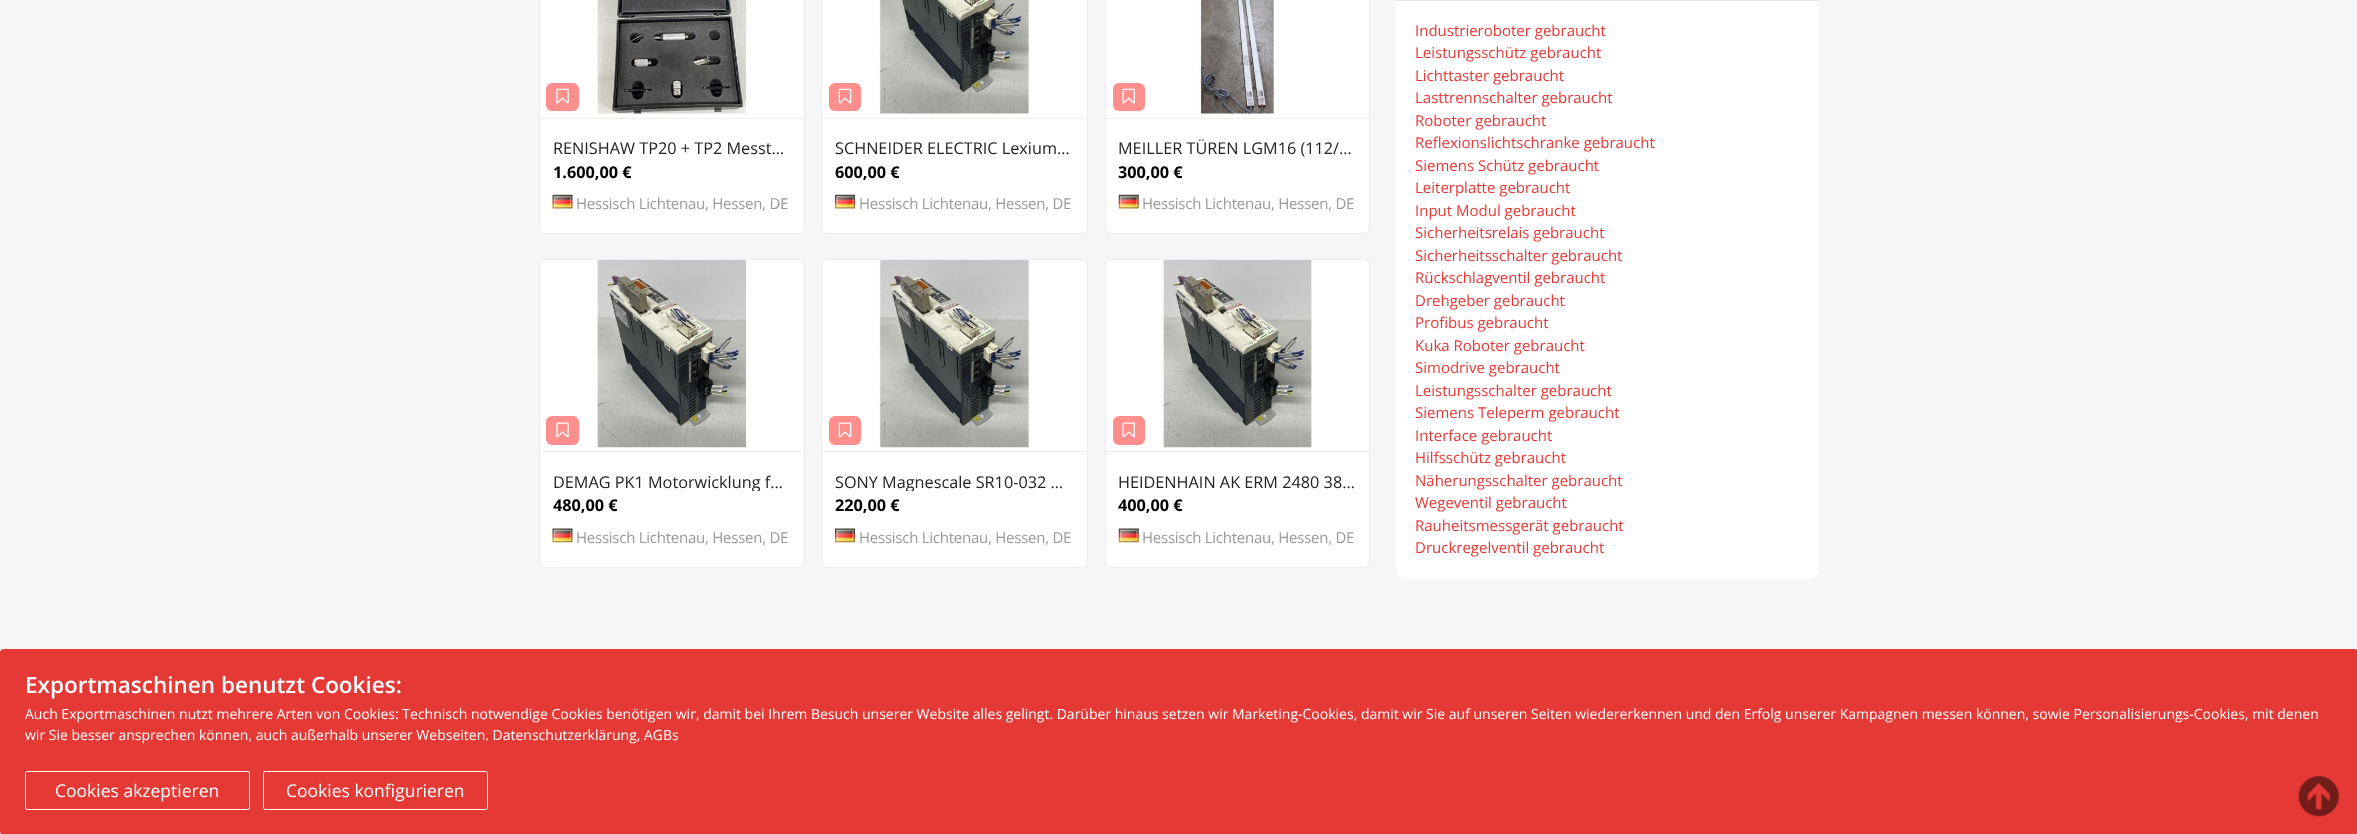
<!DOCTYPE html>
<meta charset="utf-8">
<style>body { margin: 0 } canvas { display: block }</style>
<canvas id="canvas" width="2357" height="834"></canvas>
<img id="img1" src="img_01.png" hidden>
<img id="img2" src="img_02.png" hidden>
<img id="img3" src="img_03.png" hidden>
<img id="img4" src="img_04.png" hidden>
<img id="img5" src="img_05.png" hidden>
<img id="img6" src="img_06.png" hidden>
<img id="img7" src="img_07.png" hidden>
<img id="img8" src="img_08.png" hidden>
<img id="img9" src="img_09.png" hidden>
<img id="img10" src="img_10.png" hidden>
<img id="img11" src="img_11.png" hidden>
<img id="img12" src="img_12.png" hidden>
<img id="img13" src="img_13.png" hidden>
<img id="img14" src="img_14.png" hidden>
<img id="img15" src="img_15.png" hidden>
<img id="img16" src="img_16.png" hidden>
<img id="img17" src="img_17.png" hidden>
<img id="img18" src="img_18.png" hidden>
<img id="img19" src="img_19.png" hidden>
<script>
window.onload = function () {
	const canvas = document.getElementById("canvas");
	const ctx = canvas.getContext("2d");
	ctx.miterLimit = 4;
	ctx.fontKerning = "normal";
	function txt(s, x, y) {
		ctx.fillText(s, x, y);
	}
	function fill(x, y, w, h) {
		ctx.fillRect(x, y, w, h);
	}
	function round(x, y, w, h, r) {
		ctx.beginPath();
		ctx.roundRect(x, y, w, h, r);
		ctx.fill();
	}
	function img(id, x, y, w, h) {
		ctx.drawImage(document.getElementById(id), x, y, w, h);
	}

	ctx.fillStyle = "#F6F5F7";
	fill(0, 0, 2357, 834);
	ctx.fillStyle = "#FFFFFF";
	ctx.beginPath();
	ctx.roundRect(539.5, -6.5, 265, 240, 5.5);
	ctx.fill();
	ctx.strokeStyle = "#E7EDF2";
	ctx.stroke();
	ctx.fillStyle = "#EEEEEE";
	fill(540, 118, 264, 1);
	ctx.fillStyle = "#FF8F8C";
	round(546, 83, 33, 28, 6);
	img("img1", 556, 88, 13, 16);
	img("img2", 591, 0, 157, 114);
	img("img3", 552, 194, 21, 15);
	ctx.fillStyle = "#FFFFFF";
	ctx.beginPath();
	ctx.roundRect(821.5, -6.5, 266, 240, 5.5);
	ctx.fill();
	ctx.stroke();
	ctx.fillStyle = "#EEEEEE";
	fill(823, 118, 263, 1);
	ctx.fillStyle = "#FF8F8C";
	round(829, 83, 32, 28, 6);
	img("img4", 838, 88, 14, 16);
	img("img5", 877, 0, 153, 114);
	img("img6", 835, 194, 20, 15);
	ctx.fillStyle = "#FFFFFF";
	ctx.beginPath();
	ctx.roundRect(1105.5, -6.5, 264, 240, 5.5);
	ctx.fill();
	ctx.stroke();
	ctx.fillStyle = "#EEEEEE";
	fill(1106, 118, 263, 1);
	ctx.fillStyle = "#FF8F8C";
	round(1113, 83, 32, 28, 6);
	img("img7", 1122, 88, 13, 16);
	img("img8", 1198, 0, 76, 114);
	img("img9", 1118, 194, 21, 15);
	ctx.fillStyle = "#FFFFFF";
	ctx.beginPath();
	ctx.roundRect(539.5, 259.5, 265, 308, 5.5);
	ctx.fill();
	ctx.stroke();
	ctx.fillStyle = "#EEEEEE";
	fill(540, 451, 264, 1);
	ctx.fillStyle = "#FF8F8C";
	round(546, 416, 33, 29, 6);
	img("img10", 556, 422, 13, 16);
	img("img11", 595, 260, 153, 188);
	img("img12", 552, 528, 21, 15);
	ctx.fillStyle = "#FFFFFF";
	ctx.beginPath();
	ctx.roundRect(821.5, 259.5, 266, 308, 5.5);
	ctx.fill();
	ctx.stroke();
	ctx.fillStyle = "#EEEEEE";
	fill(823, 451, 263, 1);
	ctx.fillStyle = "#FF8F8C";
	round(829, 416, 32, 29, 6);
	img("img13", 838, 422, 14, 16);
	img("img14", 877, 260, 153, 188);
	img("img15", 835, 528, 20, 15);
	ctx.fillStyle = "#FFFFFF";
	ctx.beginPath();
	ctx.roundRect(1105.5, 259.5, 264, 308, 5.5);
	ctx.fill();
	ctx.stroke();
	ctx.fillStyle = "#EEEEEE";
	fill(1106, 451, 263, 1);
	ctx.fillStyle = "#FF8F8C";
	round(1113, 416, 32, 29, 6);
	img("img16", 1122, 422, 13, 16);
	img("img17", 1161, 260, 152, 188);
	img("img18", 1118, 528, 21, 15);
	ctx.fillStyle = "#FFFFFF";
	round(1396, -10, 423, 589, 10);
	ctx.fillStyle = "#E6E6E6";
	fill(1396, 0, 423, 1);
	ctx.fillStyle = "#E53935";
	round(0, 649, 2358, 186, 4);
	ctx.beginPath();
	ctx.roundRect(25.5, 771.5, 224, 38, 2);
	ctx.strokeStyle = "#FFFFFF";
	ctx.stroke();
	ctx.beginPath();
	ctx.roundRect(263.5, 771.5, 224, 38, 2);
	ctx.stroke();
	img("img19", 2298, 776, 41, 41);
	ctx.font = "16.25px Open Sans";
	ctx.fillStyle = "#222222";
	txt("RENISHAW TP20 + TP2 Messt…", 553, 154);
	ctx.font = "bold 16.25px Open Sans";
	ctx.fillStyle = "#000000";
	txt("1.600,00 €", 553, 178);
	ctx.letterSpacing = "-0.25px";
	ctx.font = "15px Open Sans";
	ctx.fillStyle = "#999999";
	txt("Hessisch Lichtenau, Hessen, DE", 576, 209);
	ctx.letterSpacing = "0px";
	ctx.font = "16.25px Open Sans";
	ctx.fillStyle = "#222222";
	txt("SCHNEIDER ELECTRIC Lexium…", 835, 154);
	ctx.font = "bold 16.25px Open Sans";
	ctx.fillStyle = "#000000";
	txt("600,00 €", 835, 178);
	ctx.letterSpacing = "-0.25px";
	ctx.font = "15px Open Sans";
	ctx.fillStyle = "#999999";
	txt("Hessisch Lichtenau, Hessen, DE", 859, 209);
	ctx.letterSpacing = "0px";
	ctx.font = "16.25px Open Sans";
	ctx.fillStyle = "#222222";
	txt("MEILLER TÜREN LGM16 (112/…", 1118, 154);
	ctx.font = "bold 16.25px Open Sans";
	ctx.fillStyle = "#000000";
	txt("300,00 €", 1118, 178);
	ctx.letterSpacing = "-0.25px";
	ctx.font = "15px Open Sans";
	ctx.fillStyle = "#999999";
	txt("Hessisch Lichtenau, Hessen, DE", 1142, 209);
	ctx.save();
	ctx.beginPath();
	ctx.rect(540, 471, 264, 20);
	ctx.clip();
	ctx.letterSpacing = "0px";
	ctx.font = "16.25px Open Sans";
	ctx.fillStyle = "#222222";
	txt("DEMAG PK1 Motorwicklung f…", 553, 488);
	ctx.restore();
	ctx.letterSpacing = "0px";
	ctx.font = "bold 16.25px Open Sans";
	ctx.fillStyle = "#000000";
	txt("480,00 €", 553, 511);
	ctx.letterSpacing = "-0.25px";
	ctx.font = "15px Open Sans";
	ctx.fillStyle = "#999999";
	txt("Hessisch Lichtenau, Hessen, DE", 576, 543);
	ctx.save();
	ctx.beginPath();
	ctx.rect(823, 471, 263, 20);
	ctx.clip();
	ctx.letterSpacing = "0px";
	ctx.font = "16.25px Open Sans";
	ctx.fillStyle = "#222222";
	txt("SONY Magnescale SR10-032 …", 835, 488);
	ctx.restore();
	ctx.letterSpacing = "0px";
	ctx.font = "bold 16.25px Open Sans";
	ctx.fillStyle = "#000000";
	txt("220,00 €", 835, 511);
	ctx.letterSpacing = "-0.25px";
	ctx.font = "15px Open Sans";
	ctx.fillStyle = "#999999";
	txt("Hessisch Lichtenau, Hessen, DE", 859, 543);
	ctx.letterSpacing = "0px";
	ctx.font = "16.25px Open Sans";
	ctx.fillStyle = "#222222";
	txt("HEIDENHAIN AK ERM 2480 38…", 1118, 488);
	ctx.font = "bold 16.25px Open Sans";
	ctx.fillStyle = "#000000";
	txt("400,00 €", 1118, 511);
	ctx.letterSpacing = "-0.25px";
	ctx.font = "15px Open Sans";
	ctx.fillStyle = "#999999";
	txt("Hessisch Lichtenau, Hessen, DE", 1142, 543);
	ctx.letterSpacing = "0px";
	ctx.fillStyle = "#E53935";
	txt("Industrieroboter gebraucht", 1415, 36);
	txt("Leistungsschütz gebraucht", 1415, 58);
	txt("Lichttaster gebraucht", 1415, 81);
	txt("Lasttrennschalter gebraucht", 1415, 103);
	txt("Roboter gebraucht", 1415, 126);
	txt("Reflexionslichtschranke gebraucht", 1415, 148);
	txt("Siemens Schütz gebraucht", 1415, 171);
	txt("Leiterplatte gebraucht", 1415, 193);
	txt("Input Modul gebraucht", 1415, 216);
	txt("Sicherheitsrelais gebraucht", 1415, 238);
	txt("Sicherheitsschalter gebraucht", 1415, 261);
	txt("Rückschlagventil gebraucht", 1415, 283);
	txt("Drehgeber gebraucht", 1415, 306);
	txt("Profibus gebraucht", 1415, 328);
	txt("Kuka Roboter gebraucht", 1415, 351);
	txt("Simodrive gebraucht", 1415, 373);
	txt("Leistungsschalter gebraucht", 1415, 396);
	txt("Siemens Teleperm gebraucht", 1415, 418);
	txt("Interface gebraucht", 1415, 441);
	txt("Hilfsschütz gebraucht", 1415, 463);
	txt("Näherungsschalter gebraucht", 1415, 486);
	txt("Wegeventil gebraucht", 1415, 508);
	txt("Rauheitsmessgerät gebraucht", 1415, 531);
	txt("Druckregelventil gebraucht", 1415, 553);
	ctx.font = "600 22.5px Open Sans";
	ctx.fillStyle = "#FFFFFF";
	txt("Exportmaschinen benutzt Cookies:", 25, 693);
	ctx.font = "14px Open Sans";
	txt("Auch Exportmaschinen nutzt mehrere Arten von Cookies: Technisch notwendige Cookies benötigen wir, damit bei Ihrem Besuch unserer Website alles gelingt. Darüber hinaus setzen wir Marketing-Cookies, damit wir Sie auf unseren Seiten wiedererkennen und den Erfolg unserer Kampagnen messen können, sowie Personalisierungs-Cookies, mit denen", 25, 719);
	txt("wir Sie besser ansprechen können, auch außerhalb unserer Webseiten. Datenschutzerklärung, AGBs", 25, 740);
	ctx.font = "17.5px Open Sans";
	txt("Cookies akzeptieren", 55, 797);
	txt("Cookies konfigurieren", 286, 797);
};
</script>
